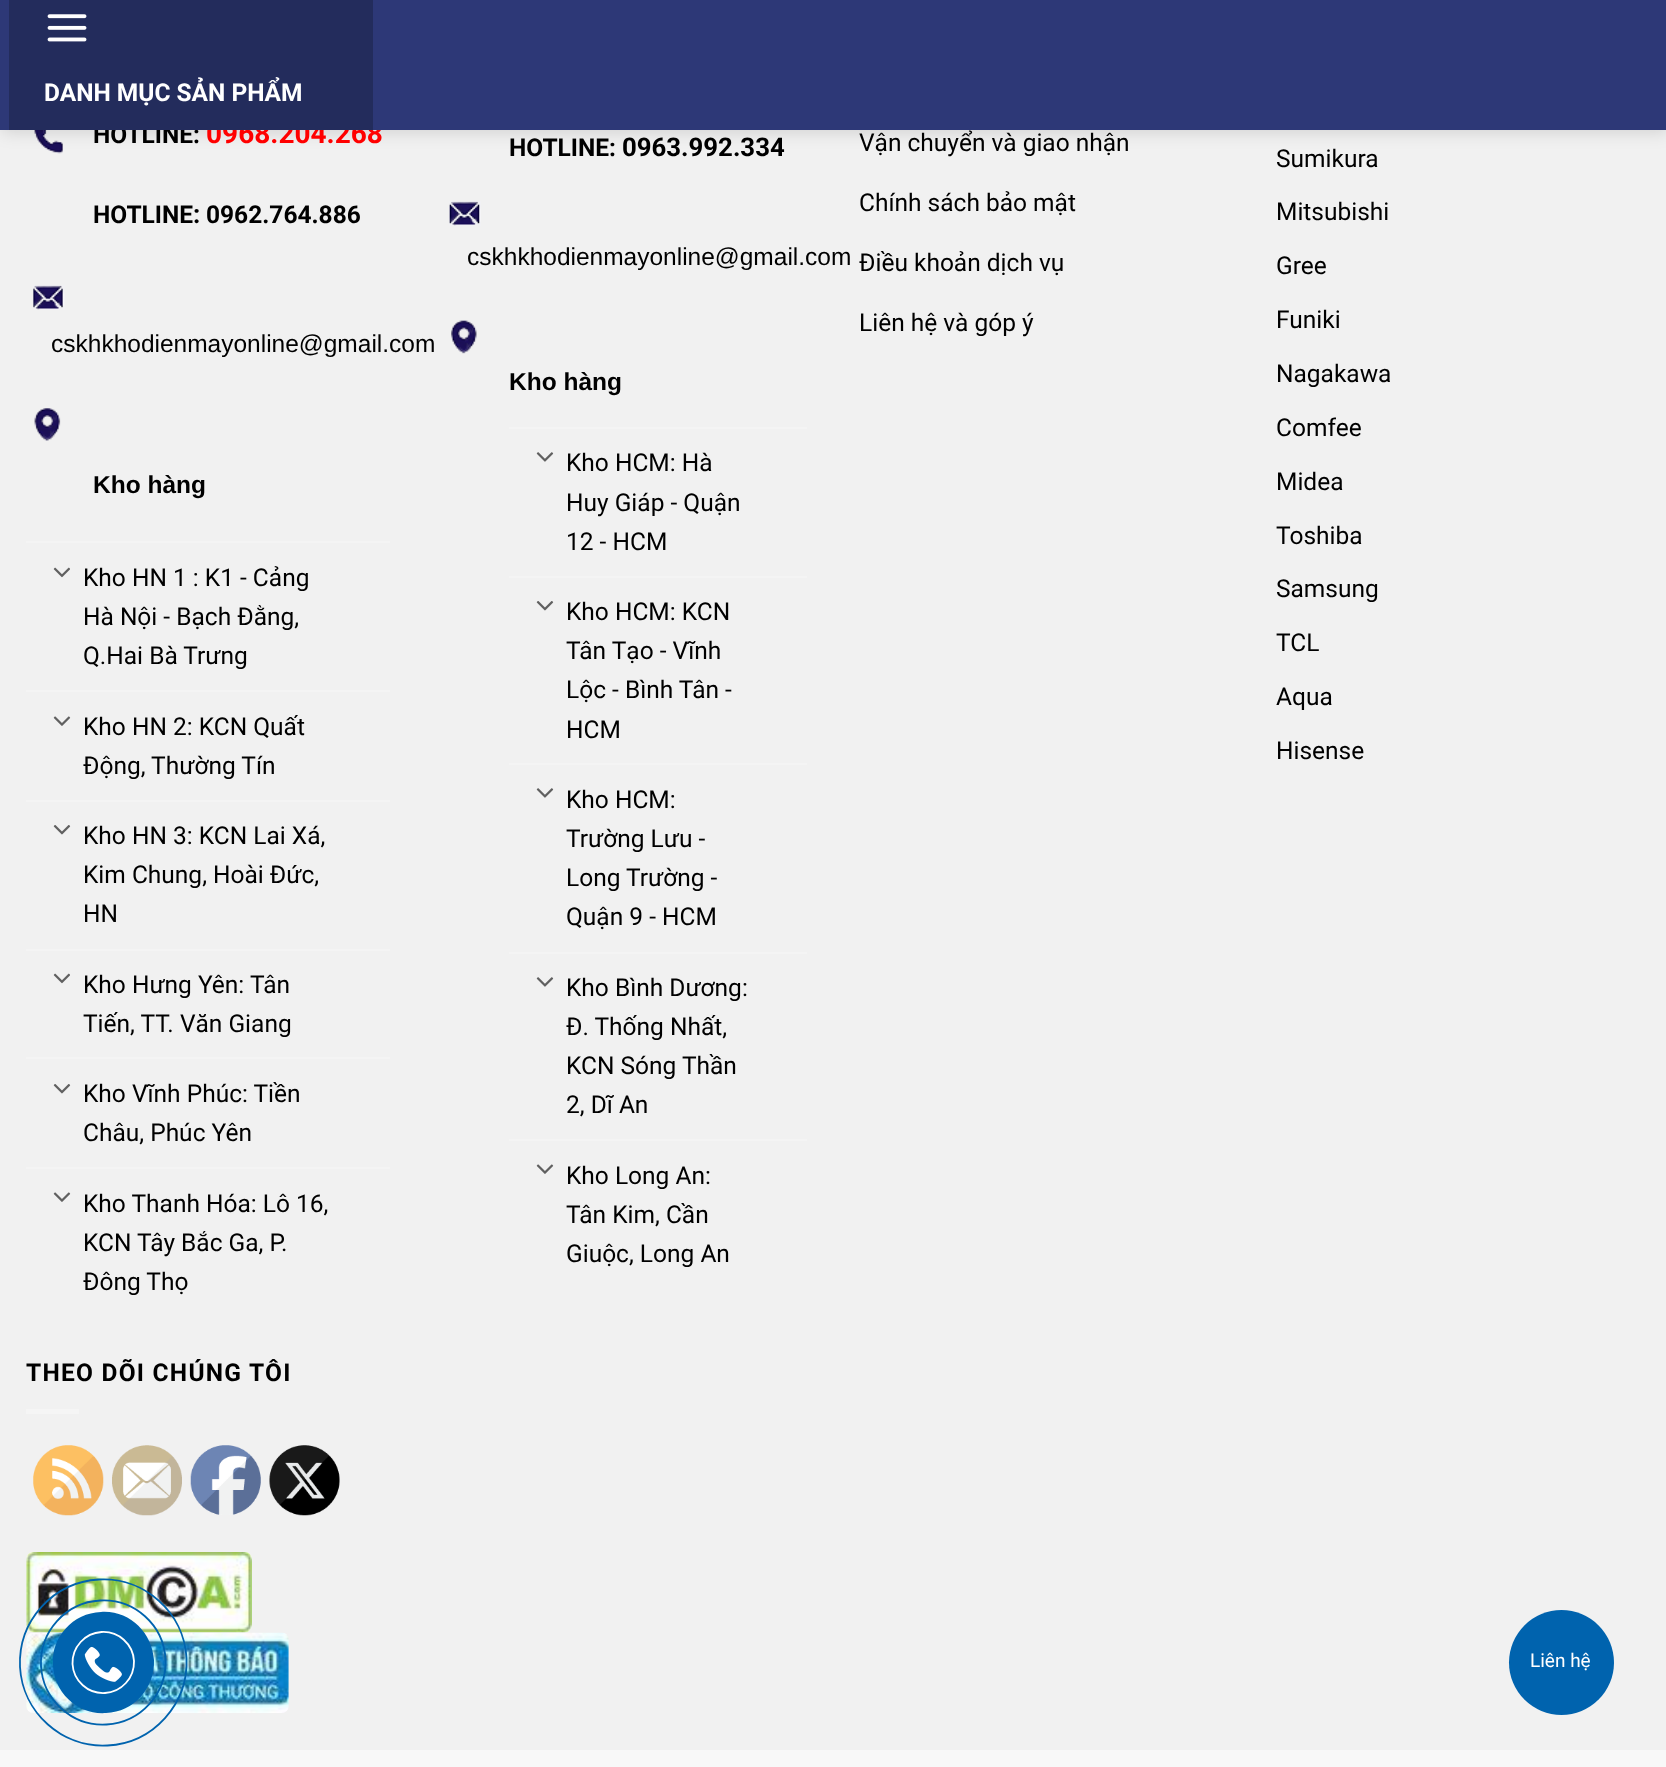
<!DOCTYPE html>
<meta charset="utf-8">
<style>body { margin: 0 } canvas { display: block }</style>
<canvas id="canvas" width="1666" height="1767"></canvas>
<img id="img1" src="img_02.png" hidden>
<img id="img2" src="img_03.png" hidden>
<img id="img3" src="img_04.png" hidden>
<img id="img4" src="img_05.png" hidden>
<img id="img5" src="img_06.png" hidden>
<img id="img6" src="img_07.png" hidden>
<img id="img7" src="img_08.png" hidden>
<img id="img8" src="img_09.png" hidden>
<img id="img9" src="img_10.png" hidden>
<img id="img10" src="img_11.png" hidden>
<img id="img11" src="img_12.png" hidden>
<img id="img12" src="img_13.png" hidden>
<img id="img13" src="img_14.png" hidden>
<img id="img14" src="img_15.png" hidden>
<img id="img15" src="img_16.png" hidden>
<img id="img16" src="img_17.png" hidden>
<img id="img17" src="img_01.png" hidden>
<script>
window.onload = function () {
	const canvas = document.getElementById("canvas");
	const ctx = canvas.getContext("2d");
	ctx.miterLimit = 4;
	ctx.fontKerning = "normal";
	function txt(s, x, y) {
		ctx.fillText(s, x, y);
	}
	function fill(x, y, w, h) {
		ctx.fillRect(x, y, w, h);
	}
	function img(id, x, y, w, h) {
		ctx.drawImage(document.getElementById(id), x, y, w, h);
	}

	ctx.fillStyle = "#F1F1F1";
	fill(0, 0, 1666, 1767);
	img("img1", 34, 130, 29, 24);
	ctx.fillStyle = "rgba(0, 0, 0, 0.15)";
	ctx.filter = "blur(9px)";
	ctx.beginPath();
	ctx.rect(2, 2, 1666, 129);
	ctx.fill();
	ctx.filter = "none";
	img("img2", 33, 285, 32, 25);
	img("img3", 34, 408, 27, 33);
	ctx.fillStyle = "#F4F4F4";
	fill(26, 541, 364, 2);
	img("img4", 53, 567, 17, 11);
	fill(26, 690, 364, 2);
	img("img5", 53, 716, 18, 10);
	fill(26, 800, 364, 2);
	img("img6", 53, 825, 18, 10);
	fill(26, 949, 364, 2);
	img("img4", 53, 973, 17, 11);
	fill(26, 1057, 364, 2);
	img("img6", 53, 1084, 18, 10);
	fill(26, 1167, 364, 2);
	img("img5", 53, 1192, 18, 10);
	img("img7", 449, 201, 32, 25);
	img("img8", 451, 320, 26, 34);
	fill(509, 427, 298, 2);
	img("img9", 536, 452, 18, 10);
	fill(509, 576, 298, 2);
	img("img6", 536, 601, 18, 10);
	fill(509, 763, 298, 2);
	img("img9", 536, 788, 18, 10);
	fill(509, 952, 298, 2);
	img("img9", 536, 977, 18, 10);
	fill(509, 1139, 298, 2);
	img("img5", 536, 1164, 18, 10);
	ctx.fillStyle = "#F5F5F5";
	fill(26, 1409, 53, 5);
	img("img10", 33, 1445, 71, 71);
	img("img11", 112, 1445, 70, 71);
	img("img12", 190, 1445, 71, 70);
	img("img13", 269, 1445, 71, 71);
	img("img14", 26, 1552, 226, 81);
	img("img15", 26, 1632, 263, 81);
	ctx.fillStyle = "#F8F8F8";
	fill(0, 1750, 1666, 17);
	ctx.fillStyle = "#0063AE";
	ctx.beginPath();
	ctx.moveTo(101, 1612);
	ctx.bezierCurveTo(129, 1610, 152, 1632, 154, 1660);
	ctx.bezierCurveTo(155, 1688, 134, 1712, 106, 1713);
	ctx.bezierCurveTo(78, 1715, 54, 1693, 53, 1665);
	ctx.bezierCurveTo(51, 1637, 73, 1613, 101, 1612);
	ctx.closePath();
	ctx.fill();
	ctx.beginPath();
	ctx.moveTo(100, 1600.5);
	ctx.bezierCurveTo(134.5, 1598.5, 163.5, 1625, 165.5, 1659);
	ctx.bezierCurveTo(167, 1693.5, 141, 1722.5, 106.5, 1724.5);
	ctx.bezierCurveTo(72, 1726.5, 43, 1700, 41, 1666);
	ctx.bezierCurveTo(39.5, 1631.5, 65.5, 1602.5, 100, 1600.5);
	ctx.closePath();
	ctx.strokeStyle = "#0063AE";
	ctx.lineWidth = 1.8;
	ctx.stroke();
	img("img16", 84, 1646, 38, 36);
	ctx.beginPath();
	ctx.moveTo(99, 1579.5);
	ctx.bezierCurveTo(144.5, 1577, 184, 1612.5, 186.5, 1658);
	ctx.bezierCurveTo(188.5, 1704, 153.5, 1743, 107.5, 1745.5);
	ctx.bezierCurveTo(62, 1748, 22.5, 1712.5, 20, 1667);
	ctx.bezierCurveTo(18, 1621, 53, 1582, 99, 1579.5);
	ctx.closePath();
	ctx.stroke();
	ctx.beginPath();
	ctx.moveTo(101.5, 1632);
	ctx.bezierCurveTo(118.5, 1631, 133, 1644, 134, 1661);
	ctx.bezierCurveTo(134.5, 1678, 121.5, 1692, 105, 1693);
	ctx.bezierCurveTo(88, 1694, 73.5, 1681, 72.5, 1664);
	ctx.bezierCurveTo(72, 1647, 85, 1633, 101.5, 1632);
	ctx.closePath();
	ctx.strokeStyle = "#FFFFFF";
	ctx.stroke();
	ctx.beginPath();
	ctx.arc(1561.5, 1662.5, 52.5, 0, Math.PI * 2);
	ctx.fill();
	ctx.font = "bold 24.5px Roboto";
	ctx.fillStyle = "#000000";
	txt("HOTLINE:", 93, 143);
	ctx.font = "bold 28px Roboto";
	ctx.fillStyle = "#FF0000";
	txt("0968.204.268", 206, 143);
	ctx.fillStyle = "#2D3877";
	fill(0, 0, 1666, 130);
	ctx.fillStyle = "#232C5C";
	fill(9, 0, 364, 130);
	img("img17", 47, 14, 40, 28);
	ctx.font = "bold 24.5px Roboto";
	ctx.fillStyle = "#FFFFFF";
	txt("DANH MỤC SẢN PHẨM", 44, 101);
	ctx.fillStyle = "#000000";
	txt("HOTLINE", 93, 223);
	ctx.font = "bold 25.75px Roboto";
	txt(":", 193, 223);
	ctx.font = "bold 24.5px Roboto";
	txt("0962.764.886", 206, 223);
	ctx.font = "24.5px Liberation Sans";
	txt("cskhkhodienmayonline@gmail.com", 51, 352);
	ctx.font = "bold 24.5px Liberation Sans";
	txt("Kho hàng", 93, 493);
	ctx.font = "24.5px Roboto";
	txt("Kho HN 1 : K1 - Cảng", 83, 586);
	txt("Hà Nội - Bạch Đằng,", 83, 625);
	txt("Q.Hai Bà Trưng", 83, 664);
	txt("Kho HN 2: KCN Quất", 83, 735);
	txt("Động, Thường Tín", 83, 774);
	txt("Kho HN 3: KCN Lai Xá,", 83, 844);
	txt("Kim Chung, Hoài Đức,", 83, 883);
	txt("HN", 83, 922);
	txt("Kho Hưng Yên: Tân", 83, 993);
	txt("Tiến, TT. Văn Giang", 83, 1032);
	txt("Kho Vĩnh Phúc: Tiền", 83, 1102);
	txt("Châu, Phúc Yên", 83, 1141);
	txt("Kho Thanh Hóa: Lô 16,", 83, 1212);
	txt("KCN Tây Bắc Ga, P.", 83, 1251);
	txt("Đông Thọ", 83, 1290);
	ctx.font = "bold 24.5px Roboto";
	txt("HOTLINE:", 509, 156);
	ctx.font = "bold 25.75px Roboto";
	txt("0963.992.334", 622, 156);
	ctx.font = "24.5px Liberation Sans";
	txt("cskhkhodienmayonline@gmail.com", 467, 265);
	ctx.font = "bold 24.5px Liberation Sans";
	txt("Kho hàng", 509, 390);
	ctx.font = "24.5px Roboto";
	txt("Kho HCM: Hà", 566, 471);
	txt("Huy Giáp - Quận", 566, 511);
	txt("12 - HCM", 566, 550);
	txt("Kho HCM: KCN", 566, 620);
	txt("Tân Tạo - Vĩnh", 566, 659);
	txt("Lộc - Bình Tân -", 566, 698);
	txt("HCM", 566, 738);
	txt("Kho HCM:", 566, 808);
	txt("Trường Lưu -", 566, 847);
	txt("Long Trường -", 566, 886);
	txt("Quận 9 - HCM", 566, 925);
	txt("Kho Bình Dương:", 566, 996);
	txt("Đ. Thống Nhất,", 566, 1035);
	txt("KCN Sóng Thần", 566, 1074);
	txt("2, Dĩ An", 566, 1113);
	txt("Kho Long An:", 566, 1184);
	txt("Tân Kim, Cần", 566, 1223);
	txt("Giuộc, Long An", 566, 1262);
	txt("Vận chuyển và giao nhận", 859, 151);
	txt("Chính sách bảo mật", 859, 211);
	txt("Điều khoản dịch vụ", 859, 271);
	txt("Liên hệ và góp ý", 859, 331);
	txt("Sumikura", 1276, 167);
	txt("Mitsubishi", 1276, 220);
	txt("Gree", 1276, 274);
	txt("Funiki", 1276, 328);
	txt("Nagakawa", 1276, 382);
	txt("Comfee", 1276, 436);
	txt("Midea", 1276, 490);
	txt("Toshiba", 1276, 544);
	txt("Samsung", 1276, 597);
	txt("TCL", 1276, 651);
	txt("Aqua", 1276, 705);
	txt("Hisense", 1276, 759);
	ctx.letterSpacing = "1.25px";
	ctx.font = "bold 24.5px Roboto";
	txt("THEO DÕI CHÚNG TÔI", 26, 1381);
	ctx.letterSpacing = "0px";
	ctx.font = "19px Roboto";
	ctx.fillStyle = "#FFFFFF";
	txt("Liên hệ", 1530, 1667);
};
</script>
